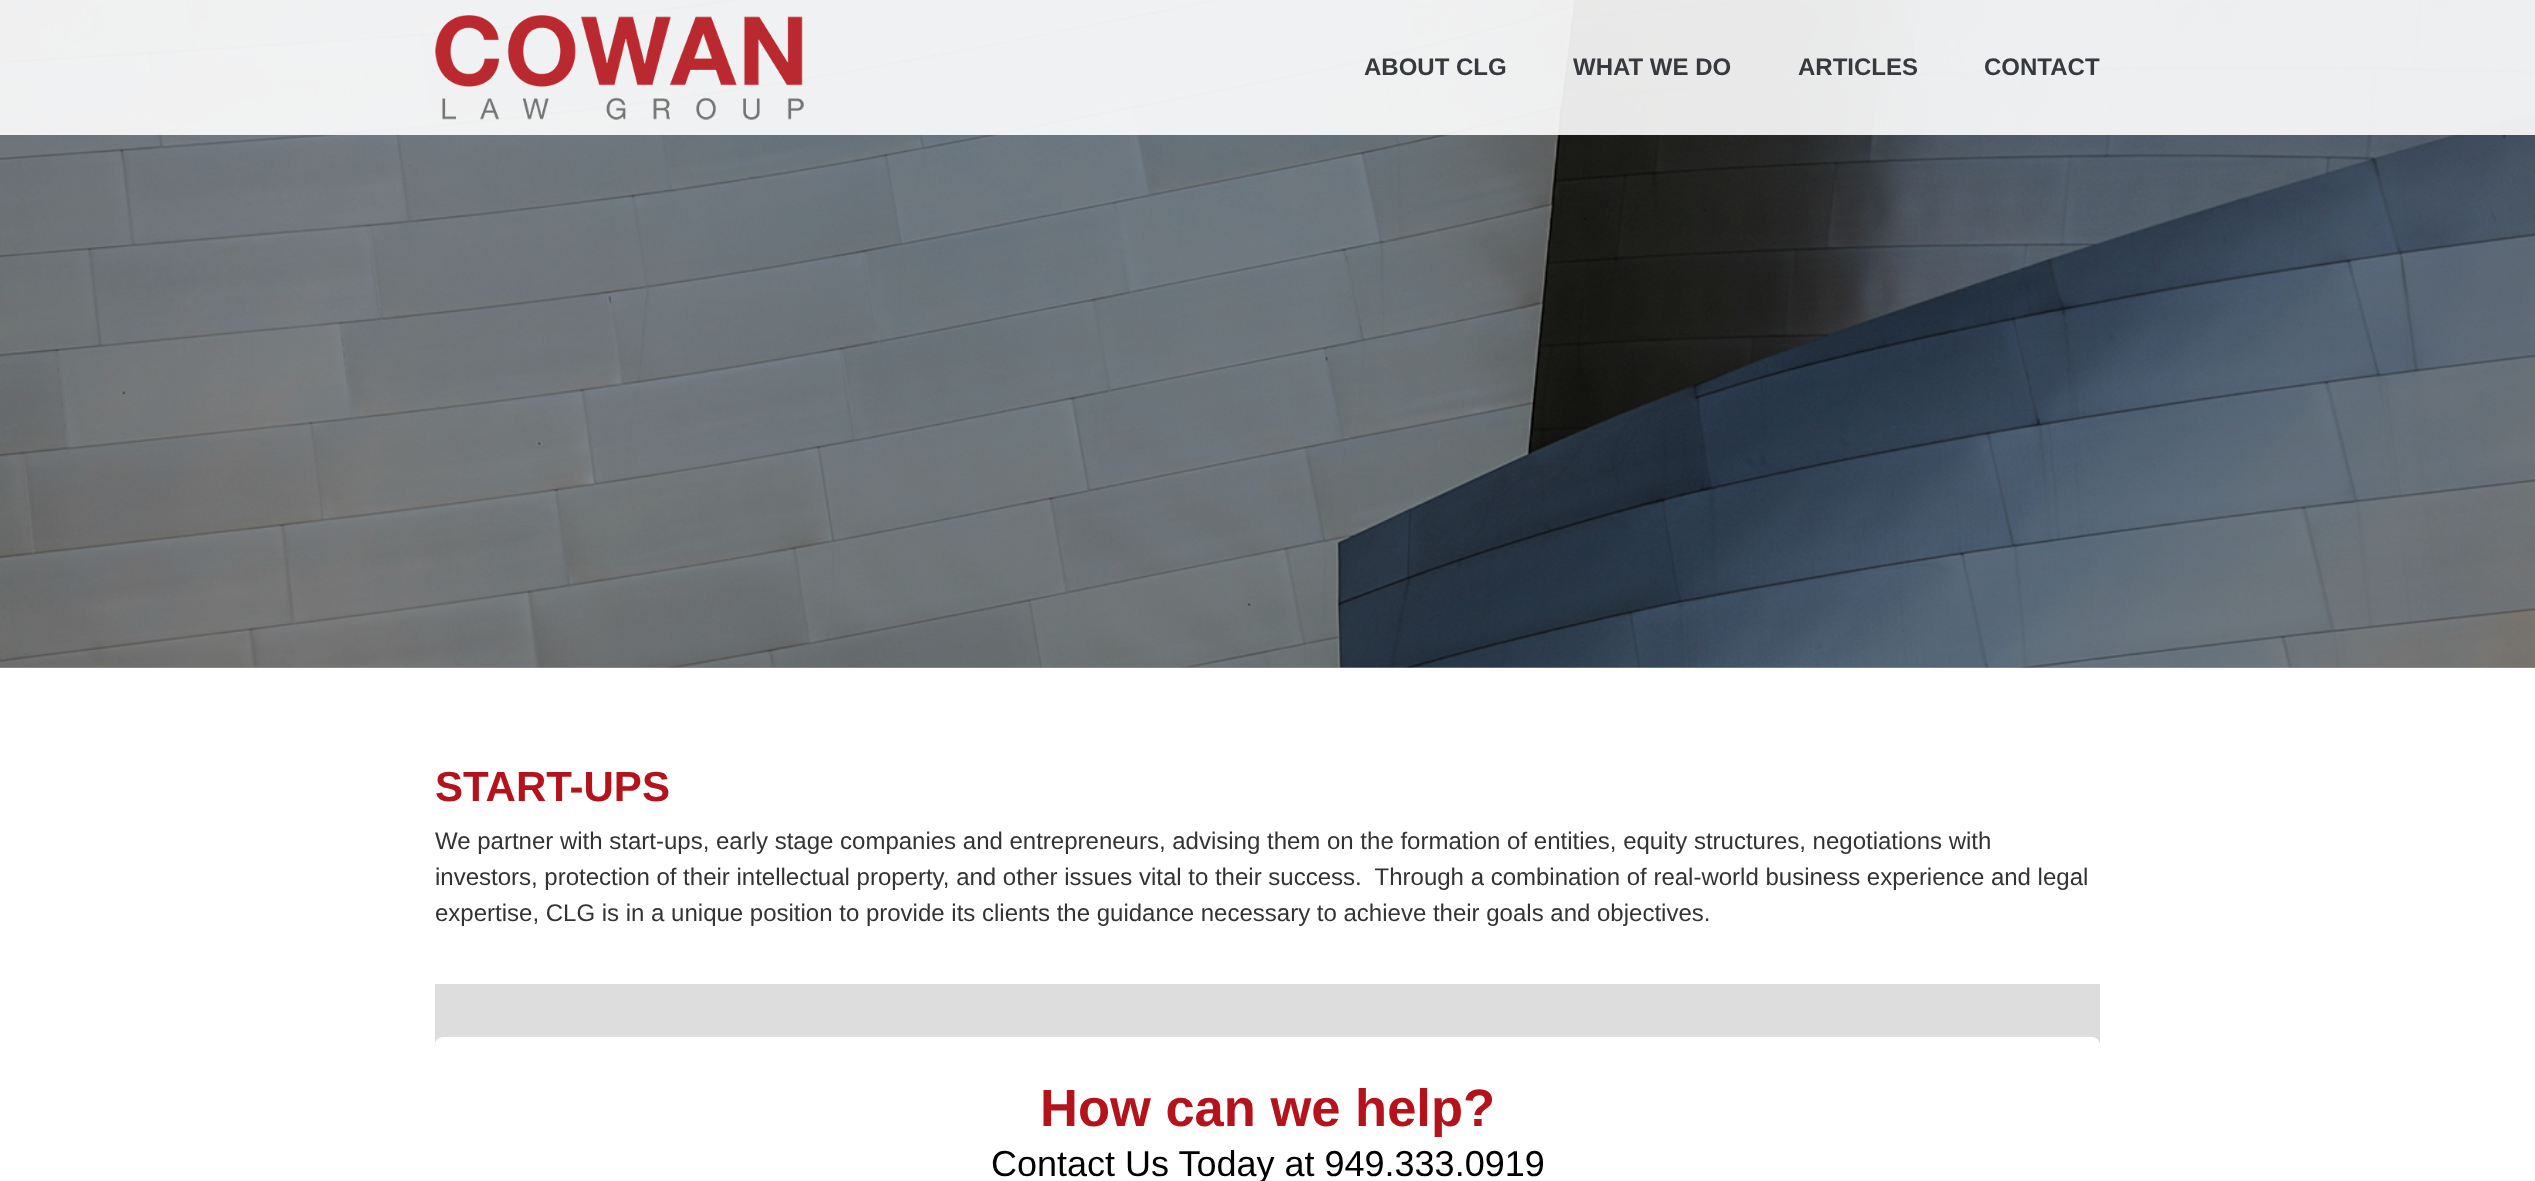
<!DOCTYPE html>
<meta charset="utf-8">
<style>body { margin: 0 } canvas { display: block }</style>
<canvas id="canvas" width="2535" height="1181"></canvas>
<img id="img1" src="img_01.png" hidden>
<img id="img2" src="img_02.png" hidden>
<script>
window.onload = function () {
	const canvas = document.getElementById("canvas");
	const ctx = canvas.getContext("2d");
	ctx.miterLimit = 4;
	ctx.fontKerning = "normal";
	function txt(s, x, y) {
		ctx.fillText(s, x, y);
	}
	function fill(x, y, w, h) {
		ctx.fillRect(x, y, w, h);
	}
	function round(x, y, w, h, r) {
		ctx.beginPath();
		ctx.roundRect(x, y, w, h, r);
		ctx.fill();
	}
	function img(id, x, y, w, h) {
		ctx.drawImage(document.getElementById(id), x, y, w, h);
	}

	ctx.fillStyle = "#E9E9E9";
	fill(0, 0, 2535, 1181);
	img("img1", 0, 0, 2535, 668);
	ctx.fillStyle = "rgba(0, 0, 0, 0.3)";
	fill(0, 0, 2535, 668);
	ctx.fillStyle = "rgba(255, 255, 255, 0.9)";
	fill(0, 0, 2535, 135);
	img("img2", 435, 15, 369, 105);
	ctx.fillStyle = "#FFFFFF";
	fill(0, 668, 2535, 513);
	ctx.fillStyle = "#DDDDDD";
	fill(435, 984, 1665, 61);
	ctx.fillStyle = "#FFFFFF";
	round(435, 1037, 1665, 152, 8);
	ctx.font = "bold 24px Liberation Sans";
	ctx.fillStyle = "#36393D";
	txt("ABOUT CLG", 1364, 75);
	txt("WHAT WE DO", 1573, 75);
	txt("ARTICLES", 1798, 75);
	txt("CONTACT", 1984, 75);
	ctx.font = "bold 42px Liberation Sans";
	ctx.fillStyle = "#B5131B";
	txt("START-UPS", 435, 801);
	ctx.font = "24px Liberation Sans";
	ctx.fillStyle = "#333333";
	txt("We partner with start-ups, early stage companies and entrepreneurs, advising them on the formation of entities, equity structures, negotiations with", 435, 849);
	txt("investors, protection of their intellectual property, and other issues vital to their success.  Through a combination of real-world business experience and legal", 435, 885);
	txt("expertise, CLG is in a unique position to provide its clients the guidance necessary to achieve their goals and objectives.", 435, 921);
	ctx.font = "bold 52.5px Liberation Sans";
	ctx.fillStyle = "#B5131B";
	txt("How can we help?", 1040, 1126);
	ctx.font = "36px Liberation Sans";
	ctx.fillStyle = "#000000";
	txt("Contact Us Today at 949.333.0919", 991, 1176);
};
</script>
